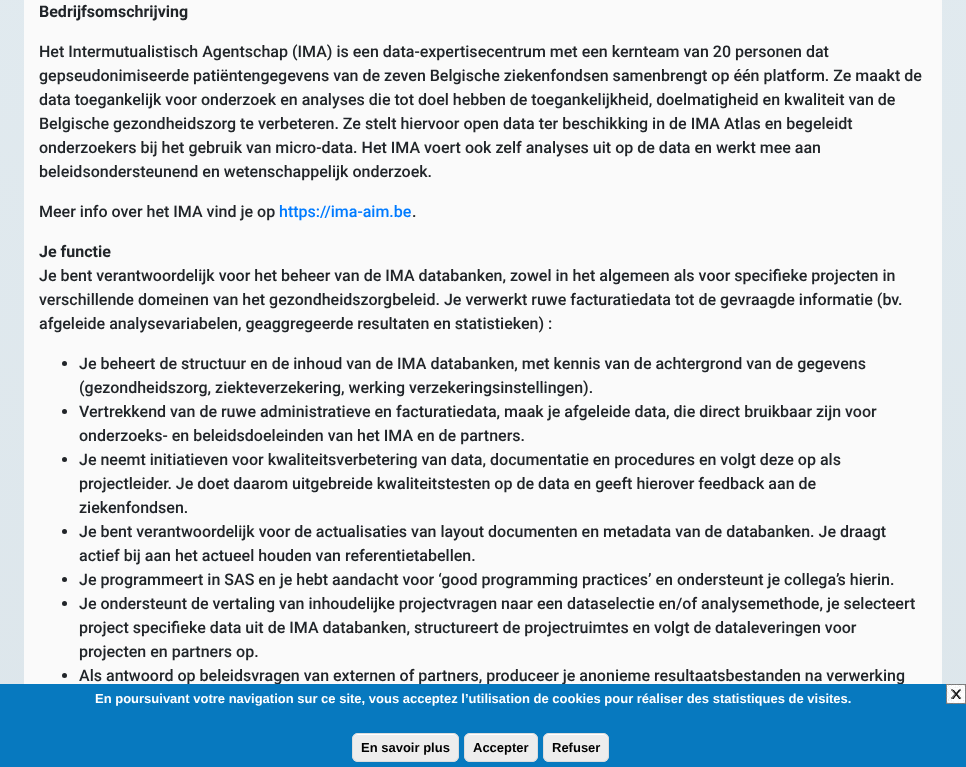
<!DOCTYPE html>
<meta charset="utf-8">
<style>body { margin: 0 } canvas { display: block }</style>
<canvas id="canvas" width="966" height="767"></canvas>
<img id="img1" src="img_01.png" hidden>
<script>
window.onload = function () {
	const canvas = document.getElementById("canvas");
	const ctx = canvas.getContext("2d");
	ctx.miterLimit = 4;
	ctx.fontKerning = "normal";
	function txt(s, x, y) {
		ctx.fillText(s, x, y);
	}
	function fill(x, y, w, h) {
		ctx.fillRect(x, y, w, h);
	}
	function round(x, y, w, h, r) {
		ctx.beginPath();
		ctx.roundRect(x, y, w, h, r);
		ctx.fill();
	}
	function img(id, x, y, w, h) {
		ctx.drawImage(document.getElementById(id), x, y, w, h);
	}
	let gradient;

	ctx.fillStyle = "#FFFFFF";
	fill(0, 0, 966, 767);
	gradient = ctx.createLinearGradient(483, 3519, 483, -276);
	gradient.addColorStop(0, "#CFD9DF");
	gradient.addColorStop(1, "#E2EBF0");
	ctx.fillStyle = gradient;
	fill(0, 0, 966, 684);
	ctx.fillStyle = "#FAFAFA";
	fill(24, 0, 918, 684);
	ctx.fillStyle = "#212529";
	ctx.beginPath();
	ctx.arc(64.5, 363.5, 2.5, 0, Math.PI * 2);
	ctx.fill();
	ctx.beginPath();
	ctx.arc(64.5, 411.5, 2.5, 0, Math.PI * 2);
	ctx.fill();
	ctx.beginPath();
	ctx.arc(64.5, 459.5, 2.5, 0, Math.PI * 2);
	ctx.fill();
	ctx.beginPath();
	ctx.arc(64.5, 531.5, 2.5, 0, Math.PI * 2);
	ctx.fill();
	ctx.beginPath();
	ctx.arc(64.5, 579.5, 2.5, 0, Math.PI * 2);
	ctx.fill();
	ctx.beginPath();
	ctx.arc(64.5, 603.5, 2.5, 0, Math.PI * 2);
	ctx.fill();
	ctx.beginPath();
	ctx.arc(64.5, 675.5, 2.5, 0, Math.PI * 2);
	ctx.fill();
	ctx.font = "bold 16px Roboto";
	txt("Bedrijfsomschrijving", 39, 17);
	ctx.font = "500 16px Roboto";
	txt("Het Intermutualistisch Agentschap (IMA) is een data-expertisecentrum met een kernteam van 20 personen dat", 39, 57);
	txt("gepseudonimiseerde patiëntengegevens van de zeven Belgische ziekenfondsen samenbrengt op één platform. Ze maakt de", 39, 81);
	txt("data toegankelijk voor onderzoek en analyses die tot doel hebben de toegankelijkheid, doelmatigheid en kwaliteit van de", 39, 105);
	txt("Belgische gezondheidszorg te verbeteren. Ze stelt hiervoor open data ter beschikking in de IMA Atlas en begeleidt", 39, 129);
	txt("onderzoekers bij het gebruik van micro-data. Het IMA voert ook zelf analyses uit op de data en werkt mee aan", 39, 153);
	txt("beleidsondersteunend en wetenschappelijk onderzoek.", 39, 177);
	txt("Meer info over het IMA vind je op", 39, 217);
	ctx.fillStyle = "#007BFF";
	txt("https://ima-aim.be", 279, 217);
	ctx.fillStyle = "#212529";
	txt(".", 412, 217);
	ctx.font = "bold 16px Roboto";
	txt("Je functie", 39, 257);
	ctx.font = "500 16px Roboto";
	txt("Je bent verantwoordelijk voor het beheer van de IMA databanken, zowel in het algemeen als voor specifieke projecten in", 39, 281);
	txt("verschillende domeinen van het gezondheidszorgbeleid. Je verwerkt ruwe facturatiedata tot de gevraagde informatie (bv.", 39, 305);
	txt("afgeleide analysevariabelen, geaggregeerde resultaten en statistieken) :", 39, 329);
	txt("Je beheert de structuur en de inhoud van de IMA databanken, met kennis van de achtergrond van de gegevens", 79, 369);
	txt("(gezondheidszorg, ziekteverzekering, werking verzekeringsinstellingen).", 79, 393);
	txt("Vertrekkend van de ruwe administratieve en facturatiedata, maak je afgeleide data, die direct bruikbaar zijn voor", 79, 417);
	txt("onderzoeks- en beleidsdoeleinden van het IMA en de partners.", 79, 441);
	txt("Je neemt initiatieven voor kwaliteitsverbetering van data, documentatie en procedures en volgt deze op als", 79, 465);
	txt("projectleider. Je doet daarom uitgebreide kwaliteitstesten op de data en geeft hierover feedback aan de", 79, 489);
	txt("ziekenfondsen.", 79, 513);
	txt("Je bent verantwoordelijk voor de actualisaties van layout documenten en metadata van de databanken. Je draagt", 79, 537);
	txt("actief bij aan het actueel houden van referentietabellen.", 79, 561);
	txt("Je programmeert in SAS en je hebt aandacht voor ‘good programming practices’ en ondersteunt je collega’s hierin.", 79, 585);
	txt("Je ondersteunt de vertaling van inhoudelijke projectvragen naar een dataselectie en/of analysemethode, je selecteert", 79, 609);
	txt("project specifieke data uit de IMA databanken, structureert de projectruimtes en volgt de dataleveringen voor", 79, 633);
	txt("projecten en partners op.", 79, 657);
	txt("Als antwoord op beleidsvragen van externen of partners, produceer je anonieme resultaatsbestanden na verwerking", 79, 681);
	ctx.fillStyle = "#0779BF";
	fill(0, 684, 966, 83);
	ctx.font = "bold 13px Liberation Sans";
	ctx.fillStyle = "#FFFFFF";
	txt("En poursuivant votre navigation sur ce site, vous acceptez l’utilisation de cookies pour réaliser des statistiques de visites.", 95, 703);
	img("img1", 946, 684, 20, 20);
	ctx.font = "13px Liberation Sans";
	ctx.fillStyle = "#000000";
	txt("X", 952, 699);
	ctx.fillStyle = "#EDEDED";
	round(352, 733, 107, 29, 6);
	ctx.fillStyle = "#FFFFFF";
	ctx.beginPath();
	ctx.moveTo(358, 735);
	ctx.lineTo(453, 735);
	ctx.bezierCurveTo(456, 735, 458, 737, 458, 740);
	ctx.bezierCurveTo(458, 730, 442, 734, 437, 734);
	ctx.lineTo(374, 734);
	ctx.bezierCurveTo(369, 734, 353, 730, 353, 740);
	ctx.bezierCurveTo(353, 737, 355, 735, 358, 735);
	ctx.closePath();
	ctx.fill();
	ctx.beginPath();
	ctx.roundRect(352.5, 733.5, 106, 28, 5.5);
	ctx.strokeStyle = "#DCDCDC";
	ctx.stroke();
	ctx.font = "bold 13px Liberation Sans";
	ctx.fillStyle = "#000000";
	txt("En savoir plus", 361, 752);
	ctx.fillStyle = "#EDEDED";
	round(464, 733, 74, 29, 6);
	ctx.fillStyle = "#FFFFFF";
	ctx.beginPath();
	ctx.moveTo(470, 735);
	ctx.lineTo(532, 735);
	ctx.bezierCurveTo(535, 735, 537, 737, 537, 740);
	ctx.bezierCurveTo(537, 732, 527, 734, 522, 734);
	ctx.lineTo(480, 734);
	ctx.bezierCurveTo(475, 734, 465, 732, 465, 740);
	ctx.bezierCurveTo(465, 737, 467, 735, 470, 735);
	ctx.closePath();
	ctx.fill();
	ctx.beginPath();
	ctx.roundRect(464.5, 733.5, 73, 28, 5.5);
	ctx.stroke();
	ctx.fillStyle = "#000000";
	txt("Accepter", 473, 752);
	ctx.fillStyle = "#EDEDED";
	round(543, 733, 66, 29, 6);
	ctx.fillStyle = "#FFFFFF";
	ctx.beginPath();
	ctx.moveTo(549, 735);
	ctx.lineTo(603, 735);
	ctx.bezierCurveTo(606, 735, 608, 737, 608, 740);
	ctx.bezierCurveTo(608, 732, 600, 734, 594, 734);
	ctx.lineTo(558, 734);
	ctx.bezierCurveTo(552, 734, 544, 732, 544, 740);
	ctx.bezierCurveTo(544, 737, 546, 735, 549, 735);
	ctx.closePath();
	ctx.fill();
	ctx.beginPath();
	ctx.roundRect(543.5, 733.5, 65, 28, 5.5);
	ctx.stroke();
	ctx.fillStyle = "#000000";
	txt("Refuser", 552, 752);
};
</script>
